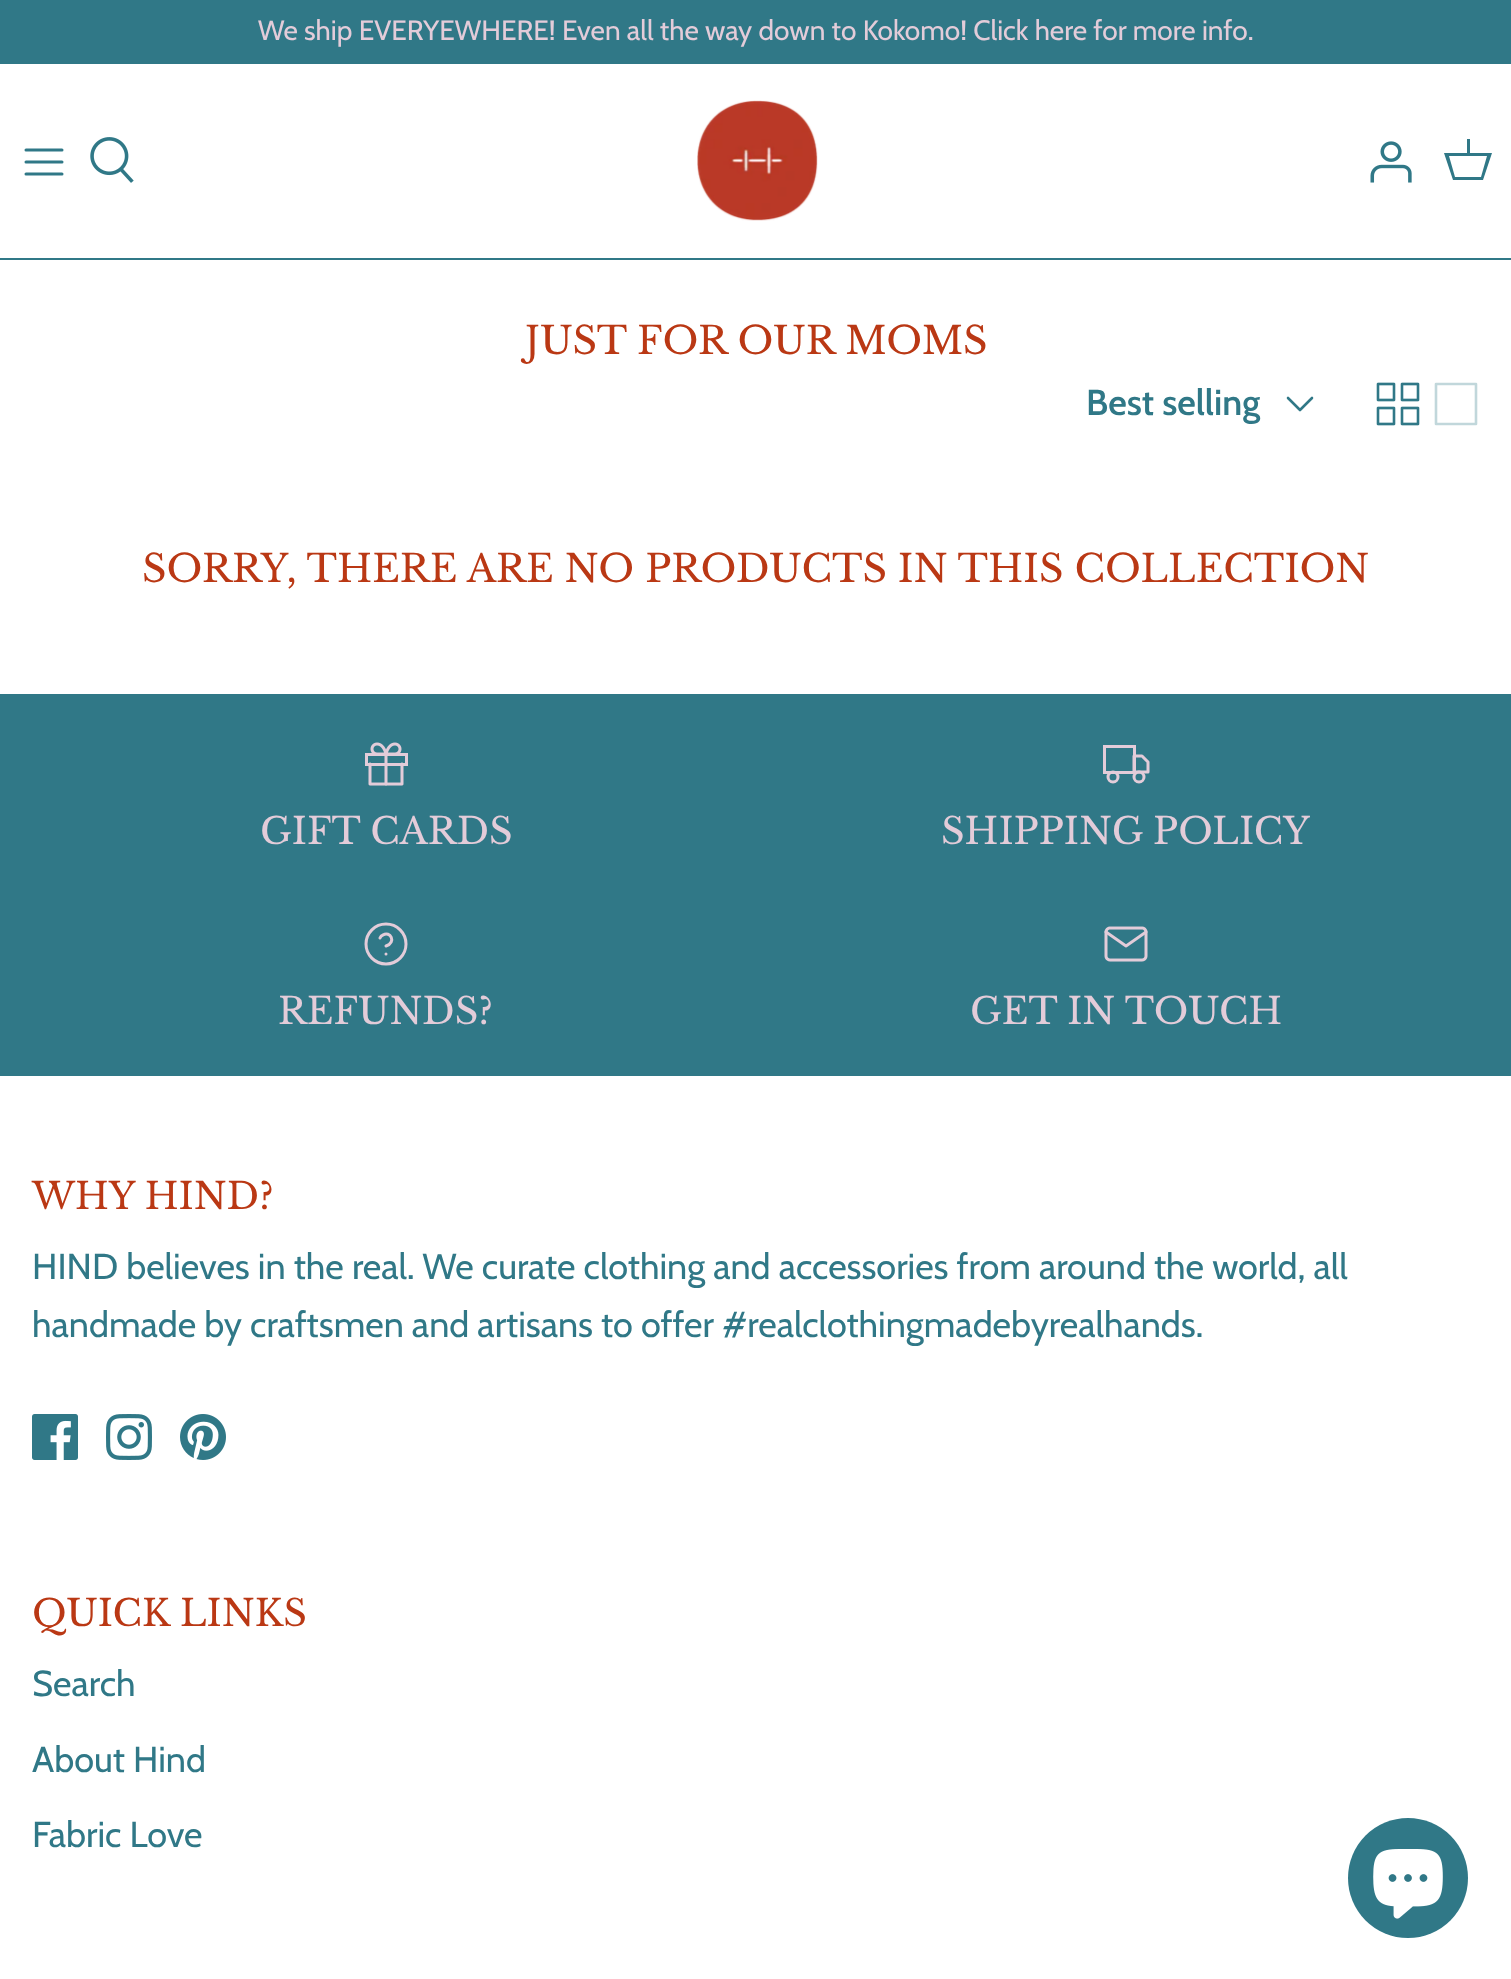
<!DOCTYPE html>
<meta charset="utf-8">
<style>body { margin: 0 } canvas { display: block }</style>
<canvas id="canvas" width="1511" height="1979"></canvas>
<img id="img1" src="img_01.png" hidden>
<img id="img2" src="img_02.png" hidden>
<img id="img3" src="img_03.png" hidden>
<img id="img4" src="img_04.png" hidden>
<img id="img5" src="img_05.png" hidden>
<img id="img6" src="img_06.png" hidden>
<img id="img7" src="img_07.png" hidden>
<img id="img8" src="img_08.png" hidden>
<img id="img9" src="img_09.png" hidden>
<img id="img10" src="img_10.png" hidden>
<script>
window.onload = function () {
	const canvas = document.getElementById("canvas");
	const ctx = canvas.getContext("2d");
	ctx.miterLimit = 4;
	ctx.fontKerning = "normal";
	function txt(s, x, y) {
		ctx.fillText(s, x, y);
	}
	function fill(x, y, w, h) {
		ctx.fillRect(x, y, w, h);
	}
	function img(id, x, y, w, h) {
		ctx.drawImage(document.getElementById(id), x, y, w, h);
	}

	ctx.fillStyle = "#FFFFFF";
	fill(0, 0, 1511, 1979);
	ctx.fillStyle = "#307887";
	fill(0, 0, 1511, 64);
	fill(0, 258, 1511, 2);
	ctx.beginPath();
	ctx.moveTo(26, 162);
	ctx.lineTo(62, 162);
	ctx.moveTo(26, 150);
	ctx.lineTo(62, 150);
	ctx.moveTo(26, 174);
	ctx.lineTo(62, 174);
	ctx.strokeStyle = "#307887";
	ctx.lineWidth = 3;
	ctx.lineCap = "round";
	ctx.lineJoin = "round";
	ctx.stroke();
	img("img1", 90, 137, 44, 46);
	img("img2", 697, 100, 121, 121);
	img("img3", 1370, 141, 42, 42);
	ctx.beginPath();
	ctx.moveTo(1467, 153);
	ctx.lineTo(1467, 139);
	ctx.lineTo(1470, 139);
	ctx.lineTo(1470, 153);
	ctx.lineTo(1492, 153);
	ctx.lineTo(1483, 180);
	ctx.lineTo(1453, 180);
	ctx.lineTo(1444, 153);
	ctx.closePath();
	ctx.moveTo(1449, 156);
	ctx.lineTo(1455, 177);
	ctx.lineTo(1481, 177);
	ctx.lineTo(1487, 156);
	ctx.closePath();
	ctx.fill();
	ctx.beginPath();
	ctx.moveTo(1288, 398);
	ctx.lineTo(1300, 410);
	ctx.lineTo(1312, 398);
	ctx.lineWidth = 2.6;
	ctx.stroke();
	img("img4", 1376, 382, 44, 44);
	ctx.beginPath();
	ctx.moveTo(1436, 384);
	ctx.lineTo(1476, 384);
	ctx.lineTo(1476, 424);
	ctx.lineTo(1436, 424);
	ctx.lineTo(1436, 384);
	ctx.strokeStyle = "#C1D7DB";
	ctx.stroke();
	fill(0, 694, 1511, 382);
	img("img5", 365, 742, 43, 44);
	ctx.strokeStyle = "#E3CCD9";
	ctx.lineWidth = 3;
	ctx.lineJoin = "miter";
	ctx.strokeRect(1104.5, 746.5, 30, 26);
	ctx.beginPath();
	ctx.moveTo(1134, 756);
	ctx.lineTo(1142, 756);
	ctx.lineTo(1148, 762);
	ctx.lineTo(1148, 772);
	ctx.lineTo(1134, 772);
	ctx.closePath();
	ctx.lineJoin = "round";
	ctx.stroke();
	ctx.beginPath();
	ctx.arc(1113, 777, 5, 0, Math.PI * 2);
	ctx.stroke();
	ctx.beginPath();
	ctx.arc(1139, 777, 5, 0, Math.PI * 2);
	ctx.stroke();
	ctx.beginPath();
	ctx.arc(386, 944, 20, 0, Math.PI * 2);
	ctx.stroke();
	ctx.beginPath();
	ctx.moveTo(380, 938);
	ctx.bezierCurveTo(380.5, 936.5, 381.5, 935.5, 383, 935);
	ctx.bezierCurveTo(390, 930.5, 397, 942, 386, 946);
	ctx.moveTo(386, 954);
	ctx.lineTo(386, 954);
	ctx.stroke();
	img("img6", 1104, 926, 44, 36);
	img("img7", 32, 1414, 46, 46);
	img("img8", 106, 1414, 46, 46);
	img("img9", 180, 1414, 46, 46);
	ctx.beginPath();
	ctx.arc(1408, 1878, 60, 0, Math.PI * 2);
	ctx.fill();
	img("img10", 1373, 1849, 70, 70);
	ctx.font = "28px Cabin";
	ctx.fillStyle = "#E3CCD9";
	txt("We ship EVERYEWHERE! Even all the way down to Kokomo! Click here for more info.", 258, 40);
	ctx.font = "38px Libre Baskerville";
	ctx.fillStyle = "#BA3814";
	txt("JUST FOR OUR MOMS", 525, 354);
	ctx.font = "600 36px Cabin";
	ctx.fillStyle = "#307887";
	txt("Best selling", 1086, 415);
	ctx.font = "38px Libre Baskerville";
	ctx.fillStyle = "#BA3814";
	txt("SORRY, THERE ARE NO PRODUCTS IN THIS COLLECTION", 142, 582);
	ctx.font = "36.6px Libre Baskerville";
	ctx.fillStyle = "#E3CCD9";
	txt("GIFT CARDS", 260, 844);
	txt("SHIPPING POLICY", 941, 844);
	txt("REFUNDS?", 278, 1024);
	txt("GET IN TOUCH", 970, 1024);
	ctx.fillStyle = "#BA3814";
	txt("WHY HIND?", 32, 1209);
	ctx.font = "36px Cabin";
	ctx.fillStyle = "#307887";
	txt("HIND believes in the real. We curate clothing and accessories from around the world, all", 32, 1279);
	txt("handmade by craftsmen and artisans to offer #realclothingmadebyrealhands.", 32, 1337);
	ctx.font = "36.6px Libre Baskerville";
	ctx.fillStyle = "#BA3814";
	txt("QUICK LINKS", 32, 1626);
	ctx.font = "36px Cabin";
	ctx.fillStyle = "#307887";
	txt("Search", 32, 1696);
	txt("About Hind", 32, 1772);
	txt("Fabric Love", 32, 1847);
};
</script>
